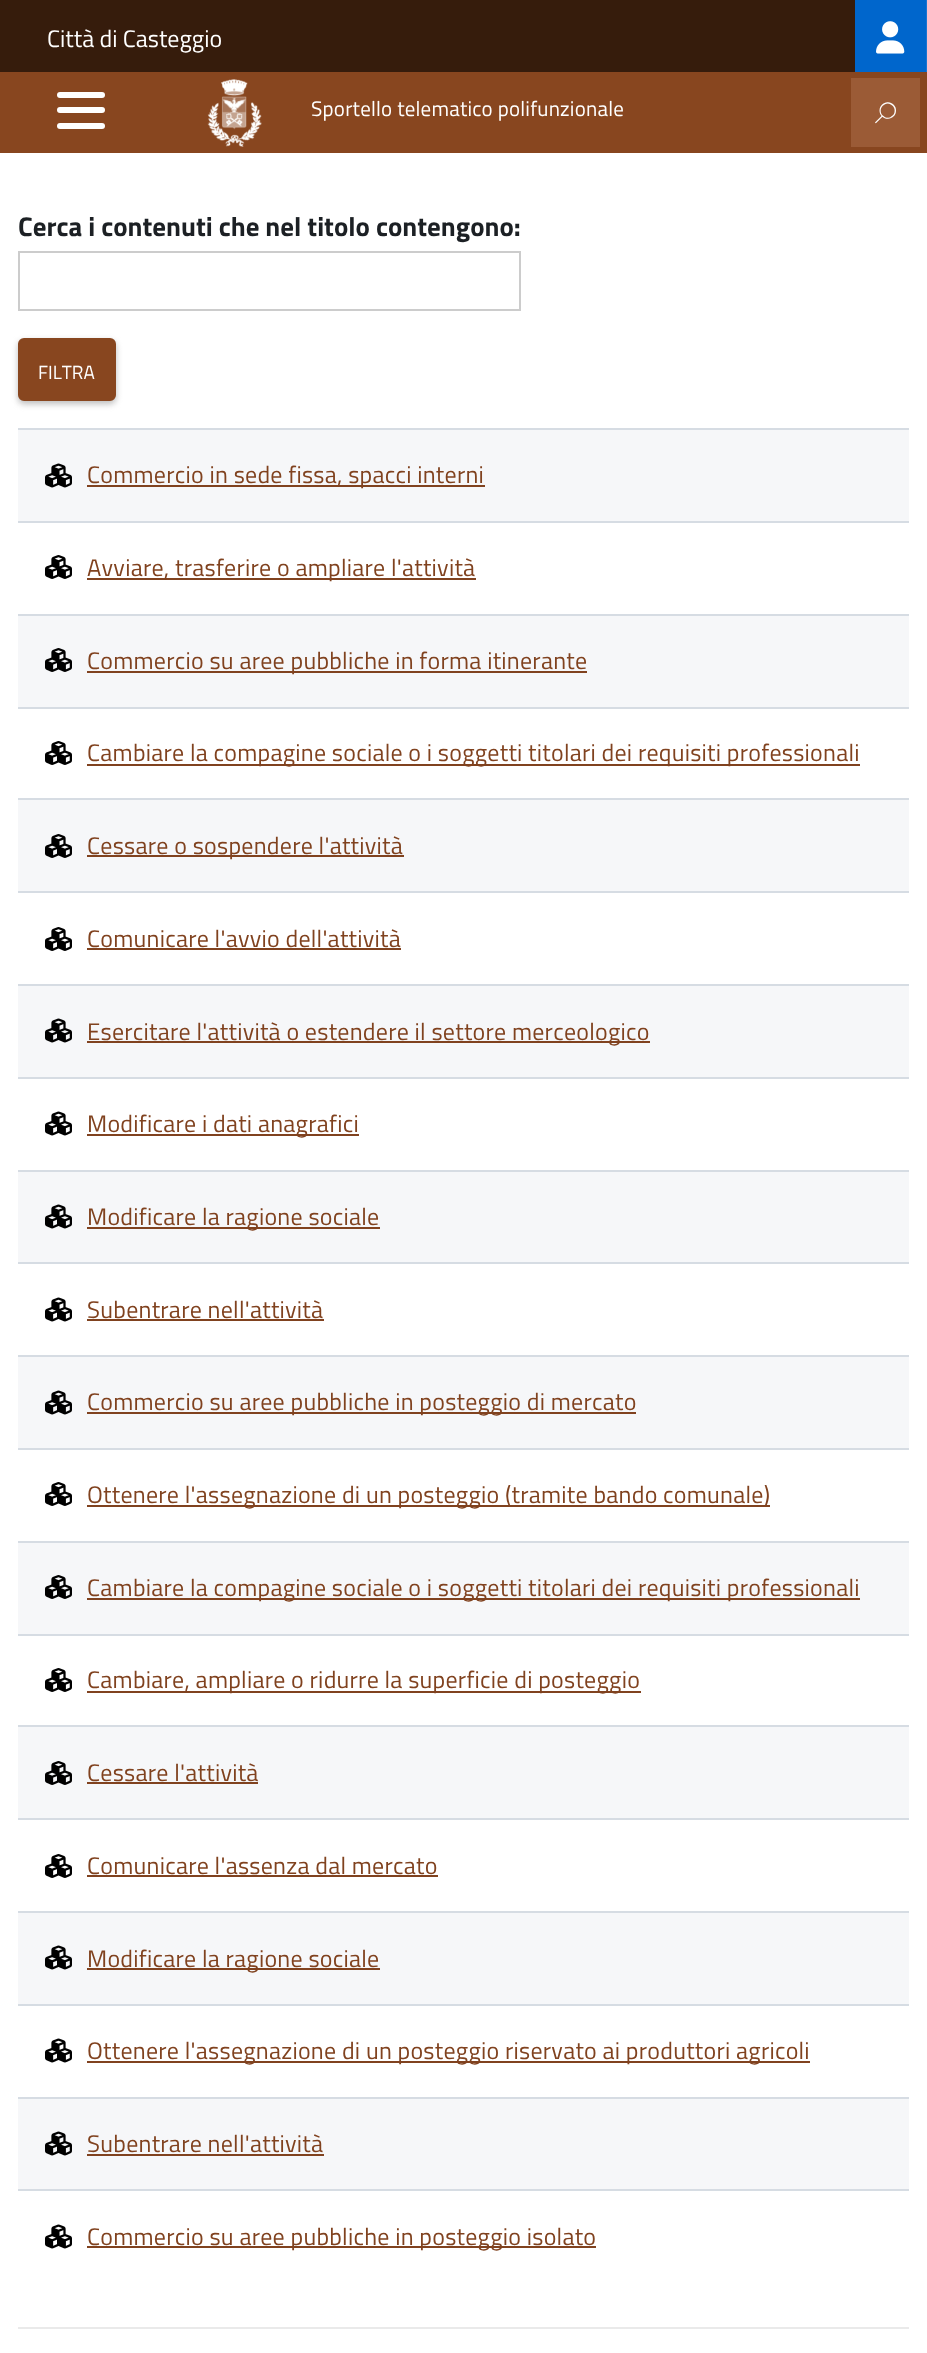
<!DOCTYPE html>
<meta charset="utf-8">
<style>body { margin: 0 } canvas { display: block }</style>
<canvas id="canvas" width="927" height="2353"></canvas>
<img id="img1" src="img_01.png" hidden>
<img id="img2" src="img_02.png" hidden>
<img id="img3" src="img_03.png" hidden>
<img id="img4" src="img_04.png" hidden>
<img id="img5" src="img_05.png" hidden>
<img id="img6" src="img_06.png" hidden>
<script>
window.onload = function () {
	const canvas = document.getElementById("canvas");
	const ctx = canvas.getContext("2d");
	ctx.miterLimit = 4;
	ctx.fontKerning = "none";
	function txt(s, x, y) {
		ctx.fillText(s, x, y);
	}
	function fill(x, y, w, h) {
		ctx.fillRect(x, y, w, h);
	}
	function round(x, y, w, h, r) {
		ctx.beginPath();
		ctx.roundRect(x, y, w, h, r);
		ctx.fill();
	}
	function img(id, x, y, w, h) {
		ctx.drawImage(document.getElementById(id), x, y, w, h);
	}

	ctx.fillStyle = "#FFFFFF";
	fill(0, 0, 927, 2353);
	ctx.fillStyle = "#361C0C";
	fill(0, 0, 855, 72);
	ctx.fillStyle = "#0066CC";
	fill(855, 0, 71, 72);
	ctx.fillStyle = "#1A75D1";
	fill(926, 0, 1, 72);
	img("img1", 876, 21, 29, 33);
	ctx.fillStyle = "#88461F";
	fill(0, 72, 927, 81);
	ctx.fillStyle = "#FFFFFF";
	round(57, 107, 48, 6, 3);
	round(57, 92, 48, 6, 3);
	round(57, 123, 48, 6, 3);
	img("img2", 207, 79, 55, 68);
	ctx.fillStyle = "#9B5B36";
	fill(851, 78, 69, 69);
	ctx.strokeStyle = "#CCCCCC";
	ctx.lineWidth = 2;
	ctx.strokeRect(19, 252, 501, 58);
	ctx.fillStyle = "#BDBDBD";
	ctx.filter = "blur(3px)";
	ctx.beginPath();
	ctx.roundRect(18, 341, 98, 63, 6);
	ctx.fill();
	ctx.filter = "none";
	ctx.fillStyle = "#88461F";
	ctx.beginPath();
	ctx.roundRect(19, 339, 96, 61, 5);
	ctx.fill();
	ctx.strokeStyle = "#88461F";
	ctx.stroke();
	ctx.fillStyle = "#F6F7F9";
	fill(18, 430, 891, 91);
	ctx.fillStyle = "#D6DCE3";
	fill(18, 428, 891, 2);
	img("img3", 45, 463, 27, 25);
	ctx.fillStyle = "#80421F";
	fill(87, 485, 398, 2);
	ctx.fillStyle = "#D6DCE3";
	fill(18, 521, 891, 2);
	img("img4", 45, 555, 27, 24);
	ctx.fillStyle = "#80421F";
	fill(87, 578, 389, 2);
	ctx.fillStyle = "#F6F7F9";
	fill(18, 616, 891, 91);
	ctx.fillStyle = "#D6DCE3";
	fill(18, 614, 891, 2);
	img("img5", 45, 648, 27, 24);
	ctx.fillStyle = "#80421F";
	fill(87, 671, 500, 2);
	ctx.fillStyle = "#D6DCE3";
	fill(18, 707, 891, 2);
	img("img4", 45, 741, 27, 24);
	ctx.fillStyle = "#80421F";
	fill(87, 764, 773, 2);
	ctx.fillStyle = "#F6F7F9";
	fill(18, 800, 891, 91);
	ctx.fillStyle = "#D6DCE3";
	fill(18, 798, 891, 2);
	img("img5", 45, 834, 27, 24);
	ctx.fillStyle = "#80421F";
	fill(87, 855, 317, 2);
	ctx.fillStyle = "#D6DCE3";
	fill(18, 891, 891, 2);
	img("img4", 45, 927, 27, 24);
	ctx.fillStyle = "#80421F";
	fill(87, 948, 314, 2);
	ctx.fillStyle = "#F6F7F9";
	fill(18, 986, 891, 91);
	ctx.fillStyle = "#D6DCE3";
	fill(18, 984, 891, 2);
	img("img3", 45, 1018, 27, 25);
	ctx.fillStyle = "#80421F";
	fill(87, 1041, 563, 2);
	ctx.fillStyle = "#D6DCE3";
	fill(18, 1077, 891, 2);
	img("img6", 45, 1111, 27, 25);
	ctx.fillStyle = "#80421F";
	fill(87, 1134, 272, 2);
	ctx.fillStyle = "#F6F7F9";
	fill(18, 1172, 891, 90);
	ctx.fillStyle = "#D6DCE3";
	fill(18, 1170, 891, 2);
	img("img3", 45, 1204, 27, 25);
	ctx.fillStyle = "#80421F";
	fill(87, 1227, 293, 2);
	ctx.fillStyle = "#D6DCE3";
	fill(18, 1262, 891, 2);
	img("img6", 45, 1297, 27, 25);
	ctx.fillStyle = "#80421F";
	fill(87, 1319, 237, 2);
	ctx.fillStyle = "#F6F7F9";
	fill(18, 1357, 891, 91);
	ctx.fillStyle = "#D6DCE3";
	fill(18, 1355, 891, 2);
	img("img3", 45, 1390, 27, 25);
	ctx.fillStyle = "#80421F";
	fill(87, 1412, 549, 2);
	ctx.fillStyle = "#D6DCE3";
	fill(18, 1448, 891, 2);
	img("img4", 45, 1482, 27, 24);
	ctx.fillStyle = "#80421F";
	fill(87, 1505, 683, 2);
	ctx.fillStyle = "#F6F7F9";
	fill(18, 1543, 891, 91);
	ctx.fillStyle = "#D6DCE3";
	fill(18, 1541, 891, 2);
	img("img5", 45, 1575, 27, 24);
	ctx.fillStyle = "#80421F";
	fill(87, 1598, 773, 2);
	ctx.fillStyle = "#D6DCE3";
	fill(18, 1634, 891, 2);
	img("img4", 45, 1668, 27, 24);
	ctx.fillStyle = "#80421F";
	fill(87, 1691, 554, 2);
	ctx.fillStyle = "#F6F7F9";
	fill(18, 1727, 891, 91);
	ctx.fillStyle = "#D6DCE3";
	fill(18, 1725, 891, 2);
	img("img5", 45, 1761, 27, 24);
	ctx.fillStyle = "#80421F";
	fill(87, 1782, 171, 2);
	ctx.fillStyle = "#D6DCE3";
	fill(18, 1818, 891, 2);
	img("img4", 45, 1854, 27, 24);
	ctx.fillStyle = "#80421F";
	fill(87, 1875, 351, 2);
	ctx.fillStyle = "#F6F7F9";
	fill(18, 1913, 891, 91);
	ctx.fillStyle = "#D6DCE3";
	fill(18, 1911, 891, 2);
	img("img3", 45, 1945, 27, 25);
	ctx.fillStyle = "#80421F";
	fill(87, 1968, 293, 2);
	ctx.fillStyle = "#D6DCE3";
	fill(18, 2004, 891, 2);
	img("img6", 45, 2038, 27, 25);
	ctx.fillStyle = "#80421F";
	fill(87, 2061, 723, 2);
	ctx.fillStyle = "#F6F7F9";
	fill(18, 2099, 891, 90);
	ctx.fillStyle = "#D6DCE3";
	fill(18, 2097, 891, 2);
	img("img3", 45, 2131, 27, 25);
	ctx.fillStyle = "#80421F";
	fill(87, 2154, 237, 2);
	ctx.fillStyle = "#D6DCE3";
	fill(18, 2189, 891, 2);
	img("img6", 45, 2224, 27, 25);
	ctx.fillStyle = "#80421F";
	fill(87, 2246, 509, 2);
	ctx.fillStyle = "#EAEAEA";
	fill(18, 2327, 891, 2);
	ctx.font = "24px Titillium Web";
	ctx.fillStyle = "#FFFFFF";
	txt("Città di Casteggio", 47, 47);
	ctx.letterSpacing = "0.2px";
	ctx.font = "21px Titillium Web";
	txt("Sportello telematico polifunzionale", 311, 116);
	ctx.letterSpacing = "0px";
	ctx.font = "21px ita";
	txt("🔍", 875, 122);
	ctx.font = "bold 27px Titillium Web";
	ctx.fillStyle = "#1C2024";
	txt("Cerca i contenuti che nel titolo contengono:", 18, 236);
	ctx.font = "19px Titillium Web";
	ctx.fillStyle = "#FFFFFF";
	txt("FILTRA", 38, 379);
	ctx.letterSpacing = "0.25px";
	ctx.font = "24px Titillium Web";
	ctx.fillStyle = "#80421F";
	txt("Commercio in sede fissa, spacci interni", 87, 483);
	txt("Avviare, trasferire o ampliare l'attività", 87, 576);
	txt("Commercio su aree pubbliche in forma itinerante", 87, 669);
	txt("Cambiare la compagine sociale o i soggetti titolari dei requisiti professionali", 87, 761);
	txt("Cessare o sospendere l'attività", 87, 854);
	txt("Comunicare l'avvio dell'attività", 87, 947);
	txt("Esercitare l'attività o estendere il settore merceologico", 87, 1040);
	txt("Modificare i dati anagrafici", 87, 1132);
	txt("Modificare la ragione sociale", 87, 1225);
	txt("Subentrare nell'attività", 87, 1318);
	txt("Commercio su aree pubbliche in posteggio di mercato", 87, 1410);
	txt("Ottenere l'assegnazione di un posteggio (tramite bando comunale)", 87, 1503);
	txt("Cambiare la compagine sociale o i soggetti titolari dei requisiti professionali", 87, 1596);
	txt("Cambiare, ampliare o ridurre la superficie di posteggio", 87, 1688);
	txt("Cessare l'attività", 87, 1781);
	txt("Comunicare l'assenza dal mercato", 87, 1874);
	txt("Modificare la ragione sociale", 87, 1967);
	txt("Ottenere l'assegnazione di un posteggio riservato ai produttori agricoli", 87, 2059);
	txt("Subentrare nell'attività", 87, 2152);
	txt("Commercio su aree pubbliche in posteggio isolato", 87, 2245);
};
</script>
